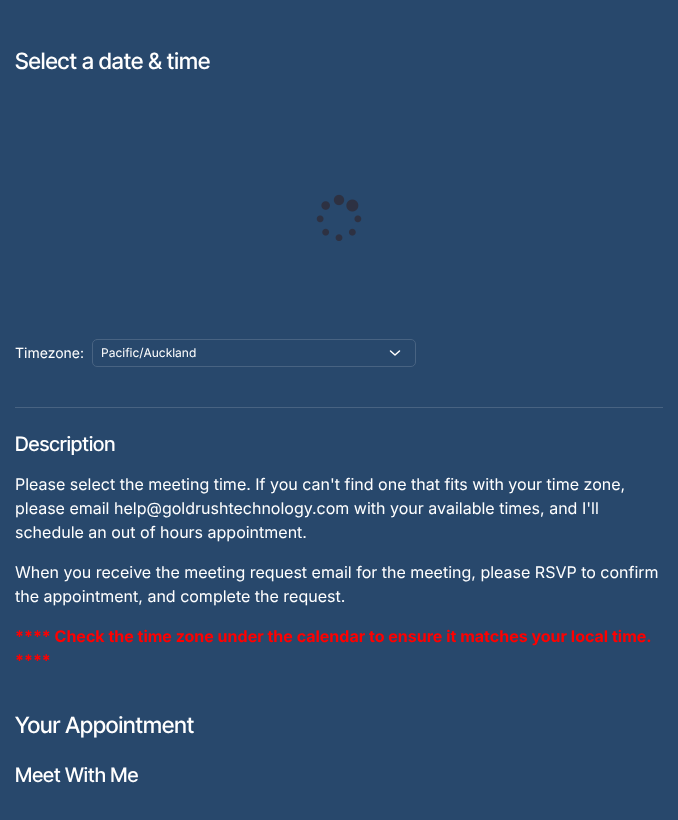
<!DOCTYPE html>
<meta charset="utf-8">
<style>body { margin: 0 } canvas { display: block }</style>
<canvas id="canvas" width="678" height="820"></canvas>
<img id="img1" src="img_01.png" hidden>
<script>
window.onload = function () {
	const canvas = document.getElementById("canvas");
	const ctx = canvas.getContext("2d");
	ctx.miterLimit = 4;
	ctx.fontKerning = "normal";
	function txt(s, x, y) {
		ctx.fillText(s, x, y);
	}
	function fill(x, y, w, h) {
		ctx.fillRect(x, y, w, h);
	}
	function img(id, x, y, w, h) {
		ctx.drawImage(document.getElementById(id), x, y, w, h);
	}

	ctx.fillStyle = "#28486C";
	fill(0, 0, 678, 820);
	img("img1", 316, 194, 46, 47);
	ctx.beginPath();
	ctx.moveTo(390.5, 351);
	ctx.lineTo(395, 355);
	ctx.lineTo(399.5, 351);
	ctx.strokeStyle = "#FFFFFF";
	ctx.lineWidth = 1.5;
	ctx.lineCap = "round";
	ctx.lineJoin = "round";
	ctx.stroke();
	ctx.beginPath();
	ctx.roundRect(92.5, 339.5, 323, 27, 4.5);
	ctx.strokeStyle = "#486382";
	ctx.lineWidth = 1;
	ctx.lineJoin = "miter";
	ctx.stroke();
	ctx.fillStyle = "#486382";
	fill(15, 407, 648, 1);
	ctx.font = "500 22.5px Inter Tight";
	ctx.fillStyle = "#FFFFFF";
	txt("Select a date & time", 15, 69);
	ctx.font = "14px Inter";
	txt("Timezone:", 15, 358);
	ctx.font = "12px Inter";
	txt("Pacific/Auckland", 101, 357);
	ctx.font = "500 20px Inter Tight";
	txt("Description", 15, 451);
	ctx.font = "16px Inter";
	txt("Please select the meeting time. If you can't find one that fits with your time zone,", 15, 490);
	txt("please email help@goldrushtechnology.com with your available times, and I'll", 15, 514);
	txt("schedule an out of hours appointment.", 15, 538);
	txt("When you receive the meeting request email for the meeting, please RSVP to confirm", 15, 578);
	txt("the appointment, and complete the request.", 15, 602);
	ctx.font = "bold 16px Inter";
	ctx.fillStyle = "#FF0000";
	txt("**** Check the time zone under the calendar to ensure it matches your local time.", 15, 642);
	txt("****", 15, 666);
	ctx.font = "500 22.5px Inter Tight";
	ctx.fillStyle = "#FFFFFF";
	txt("Your Appointment", 15, 733);
	ctx.font = "500 20px Inter Tight";
	txt("Meet With Me", 15, 782);
};
</script>
